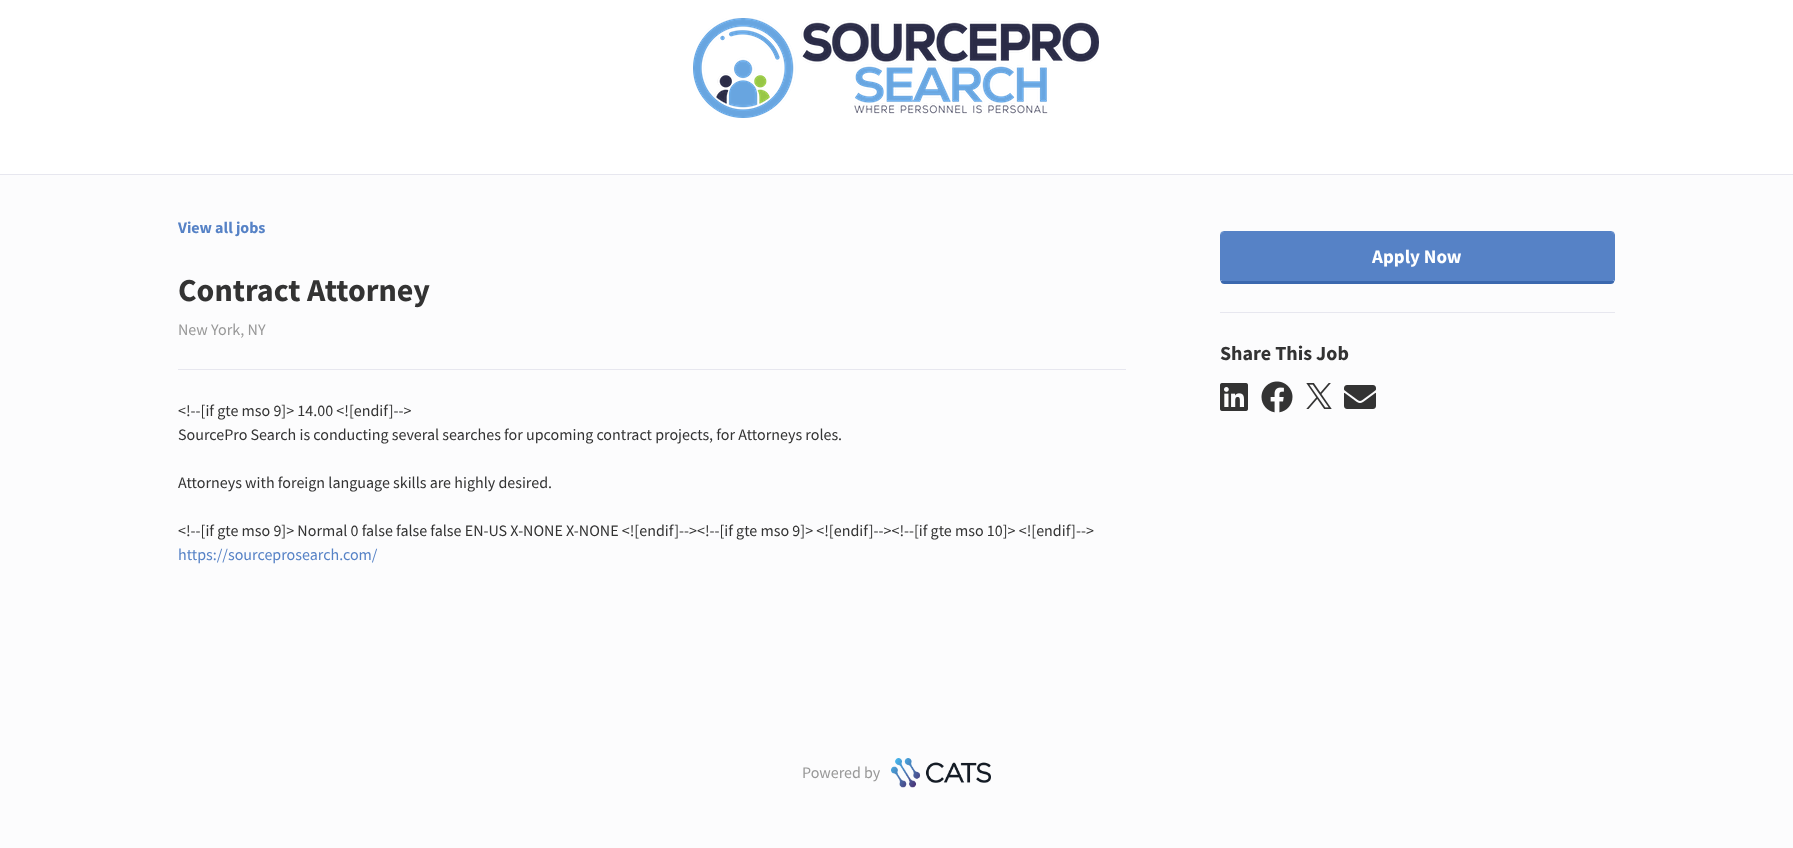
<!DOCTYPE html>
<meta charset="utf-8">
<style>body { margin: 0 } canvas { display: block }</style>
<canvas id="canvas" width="1793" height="848"></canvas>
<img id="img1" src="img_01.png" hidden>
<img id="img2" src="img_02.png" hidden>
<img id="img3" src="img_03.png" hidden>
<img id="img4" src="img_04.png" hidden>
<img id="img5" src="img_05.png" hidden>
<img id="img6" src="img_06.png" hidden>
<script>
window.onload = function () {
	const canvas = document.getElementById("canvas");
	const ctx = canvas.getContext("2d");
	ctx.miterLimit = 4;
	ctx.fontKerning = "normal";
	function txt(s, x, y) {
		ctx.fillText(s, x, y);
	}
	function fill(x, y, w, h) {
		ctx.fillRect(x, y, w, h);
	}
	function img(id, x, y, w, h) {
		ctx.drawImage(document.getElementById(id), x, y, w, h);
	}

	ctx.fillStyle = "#FCFCFD";
	fill(0, 0, 1793, 848);
	ctx.fillStyle = "#FFFFFF";
	fill(0, 0, 1793, 174);
	img("img1", 693, 18, 406, 100);
	ctx.fillStyle = "#E7E7EF";
	fill(0, 174, 1793, 1);
	fill(178, 369, 948, 1);
	ctx.fillStyle = "#5682C6";
	ctx.beginPath();
	ctx.moveTo(1224, 232);
	ctx.lineTo(1611, 232);
	ctx.bezierCurveTo(1613, 232, 1614, 233, 1614, 235);
	ctx.lineTo(1614, 280);
	ctx.bezierCurveTo(1614, 281, 1613, 281, 1611, 281);
	ctx.lineTo(1224, 281);
	ctx.bezierCurveTo(1222, 281, 1221, 281, 1221, 280);
	ctx.lineTo(1221, 235);
	ctx.bezierCurveTo(1221, 233, 1222, 232, 1224, 232);
	ctx.closePath();
	ctx.fill();
	ctx.beginPath();
	ctx.moveTo(1224, 231);
	ctx.lineTo(1221, 232);
	ctx.lineTo(1222, 233);
	ctx.lineTo(1224, 232);
	ctx.lineTo(1611, 232);
	ctx.lineTo(1613, 233);
	ctx.lineTo(1614, 232);
	ctx.lineTo(1611, 231);
	ctx.closePath();
	ctx.fill();
	ctx.beginPath();
	ctx.moveTo(1615, 280);
	ctx.lineTo(1615, 235);
	ctx.bezierCurveTo(1615, 234, 1614, 233, 1614, 232);
	ctx.lineTo(1613, 233);
	ctx.lineTo(1614, 235);
	ctx.lineTo(1614, 281);
	ctx.lineTo(1614, 282);
	ctx.closePath();
	ctx.fill();
	ctx.fillStyle = "#3B68AE";
	ctx.beginPath();
	ctx.moveTo(1224, 284);
	ctx.lineTo(1611, 284);
	ctx.bezierCurveTo(1612, 284, 1614, 283, 1614, 282);
	ctx.lineTo(1614, 281);
	ctx.lineTo(1611, 281);
	ctx.lineTo(1223, 281);
	ctx.lineTo(1221, 281);
	ctx.lineTo(1221, 282);
	ctx.bezierCurveTo(1221, 283, 1223, 284, 1224, 284);
	ctx.closePath();
	ctx.fill();
	ctx.fillStyle = "#5682C6";
	ctx.beginPath();
	ctx.moveTo(1220, 235);
	ctx.lineTo(1220, 280);
	ctx.lineTo(1221, 282);
	ctx.lineTo(1221, 281);
	ctx.lineTo(1221, 235);
	ctx.lineTo(1222, 233);
	ctx.lineTo(1221, 232);
	ctx.closePath();
	ctx.fill();
	ctx.fillStyle = "#E7E7EF";
	fill(1220, 312, 395, 1);
	img("img2", 1220, 383, 28, 28);
	img("img3", 1261, 381, 32, 32);
	img("img4", 1306, 383, 26, 26);
	img("img5", 1344, 385, 32, 24);
	img("img6", 891, 758, 100, 30);
	ctx.font = "bold 16px Source Sans Pro";
	ctx.fillStyle = "#5682C6";
	txt("View all jobs", 178, 233);
	ctx.font = "bold 32px Source Sans Pro";
	ctx.fillStyle = "#333333";
	txt("Contract Attorney", 178, 301);
	ctx.font = "16px Source Sans Pro";
	ctx.fillStyle = "#989898";
	txt("New York, NY", 178, 335);
	ctx.fillStyle = "#333333";
	txt("<\!--[if gte mso 9]> 14.00 <![endif]-->", 178, 416);
	txt("SourcePro Search is conducting several searches for upcoming contract projects, for Attorneys roles.", 178, 440);
	txt("Attorneys with foreign language skills are highly desired.", 178, 488);
	txt("<\!--[if gte mso 9]> Normal 0 false false false EN-US X-NONE X-NONE <![endif]--><\!--[if gte mso 9]> <![endif]--><\!--[if gte mso 10]> <![endif]-->", 178, 536);
	ctx.fillStyle = "#5682C6";
	txt("https://sourceprosearch.com/", 178, 560);
	ctx.font = "bold 19px Source Sans Pro";
	ctx.fillStyle = "#FFFFFF";
	txt("Apply Now", 1372, 263);
	ctx.font = "bold 20px Source Sans Pro";
	ctx.fillStyle = "#333333";
	txt("Share This Job", 1220, 360);
	ctx.font = "16px Source Sans Pro";
	ctx.fillStyle = "#989898";
	txt("Powered by", 802, 778);
};
</script>
